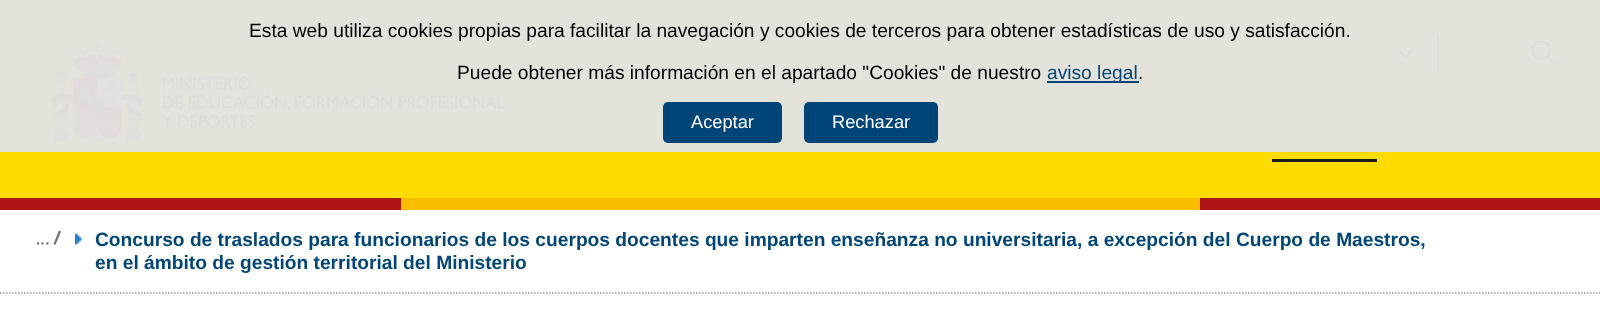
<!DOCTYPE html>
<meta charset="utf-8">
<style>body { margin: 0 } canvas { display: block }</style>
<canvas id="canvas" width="1600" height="324"></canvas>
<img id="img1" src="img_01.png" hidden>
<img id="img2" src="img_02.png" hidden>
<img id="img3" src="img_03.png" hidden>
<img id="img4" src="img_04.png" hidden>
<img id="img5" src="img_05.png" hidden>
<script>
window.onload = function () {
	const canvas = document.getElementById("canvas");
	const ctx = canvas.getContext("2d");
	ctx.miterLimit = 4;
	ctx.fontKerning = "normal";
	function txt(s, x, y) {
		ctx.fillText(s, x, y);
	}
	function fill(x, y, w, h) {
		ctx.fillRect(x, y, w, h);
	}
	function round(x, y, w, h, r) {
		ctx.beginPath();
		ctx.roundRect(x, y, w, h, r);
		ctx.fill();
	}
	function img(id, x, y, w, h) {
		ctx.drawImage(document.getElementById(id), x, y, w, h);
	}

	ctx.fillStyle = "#FFFFFF";
	fill(0, 0, 1600, 324);
	ctx.fillStyle = "#FFDB00";
	fill(0, 0, 1600, 198);
	img("img1", 51, 40, 454, 103);
	img("img2", 1398, 50, 15, 8);
	ctx.fillStyle = "#1D1D1B";
	fill(1437, 35, 2, 36);
	img("img3", 1532, 41, 24, 24);
	ctx.fillStyle = "#1D1D1D";
	fill(1272, 159, 105, 3);
	ctx.fillStyle = "#AD1519";
	fill(0, 198, 401, 12);
	ctx.fillStyle = "#FABD00";
	fill(401, 198, 799, 12);
	ctx.fillStyle = "#AD1519";
	fill(1200, 198, 400, 12);
	ctx.fillStyle = "rgba(226, 226, 226, 0.97)";
	fill(0, 0, 1600, 152);
	ctx.fillStyle = "#004578";
	fill(1047, 81, 92, 2);
	round(663, 102, 119, 41, 5);
	round(804, 102, 134, 41, 5);
	ctx.beginPath();
	ctx.moveTo(0, 293);
	ctx.lineTo(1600.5, 293);
	ctx.strokeStyle = "#999999";
	ctx.lineWidth = 1.5;
	ctx.setLineDash([1.5, 1.5]);
	ctx.stroke();
	img("img4", 36, 230, 25, 15);
	img("img5", 75, 232, 8, 13);
	ctx.font = "19.2px Liberation Sans";
	ctx.fillStyle = "#000000";
	txt("Esta web utiliza cookies propias para facilitar la navegación y cookies de terceros para obtener estadísticas de uso y satisfacción.", 249, 37);
	txt("Puede obtener más información en el apartado \"Cookies\" de nuestro", 457, 79);
	ctx.fillStyle = "#004578";
	txt("aviso legal", 1047, 79);
	ctx.fillStyle = "#000000";
	txt(".", 1138, 79);
	ctx.font = "18.25px Liberation Sans";
	ctx.fillStyle = "#FFFFFF";
	txt("Aceptar", 691, 128);
	txt("Rechazar", 832, 128);
	ctx.font = "bold 19.2px Liberation Sans";
	ctx.fillStyle = "#004578";
	txt("Concurso de traslados para funcionarios de los cuerpos docentes que imparten enseñanza no universitaria, a excepción del Cuerpo de Maestros,", 95, 246);
	txt("en el ámbito de gestión territorial del Ministerio", 95, 269);
};
</script>
